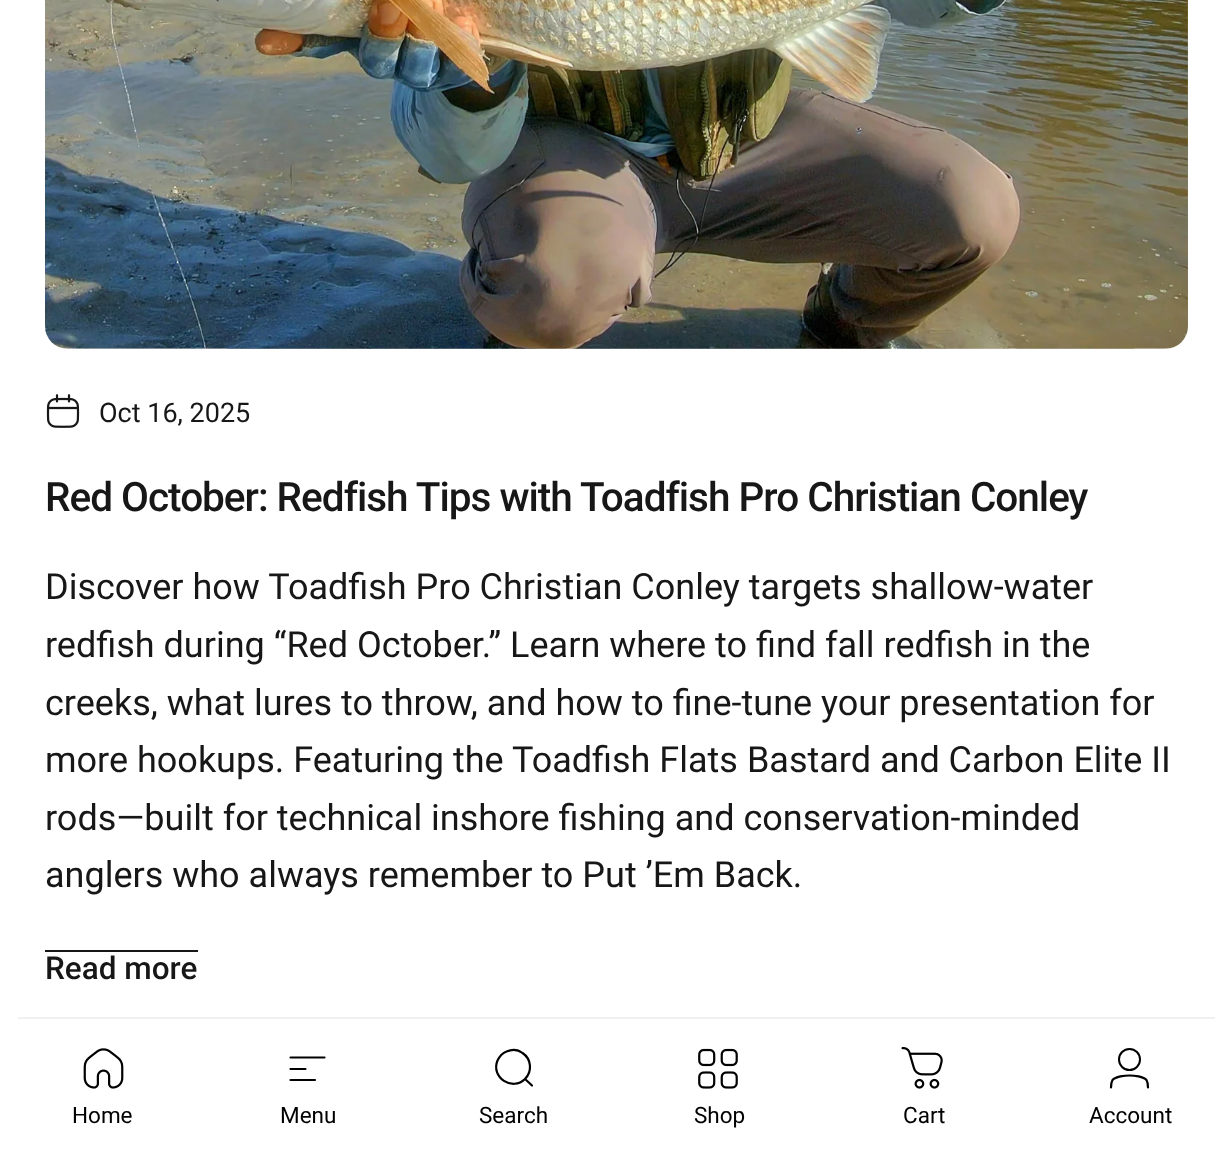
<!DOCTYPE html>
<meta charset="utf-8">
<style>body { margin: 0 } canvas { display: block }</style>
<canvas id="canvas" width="1231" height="1154"></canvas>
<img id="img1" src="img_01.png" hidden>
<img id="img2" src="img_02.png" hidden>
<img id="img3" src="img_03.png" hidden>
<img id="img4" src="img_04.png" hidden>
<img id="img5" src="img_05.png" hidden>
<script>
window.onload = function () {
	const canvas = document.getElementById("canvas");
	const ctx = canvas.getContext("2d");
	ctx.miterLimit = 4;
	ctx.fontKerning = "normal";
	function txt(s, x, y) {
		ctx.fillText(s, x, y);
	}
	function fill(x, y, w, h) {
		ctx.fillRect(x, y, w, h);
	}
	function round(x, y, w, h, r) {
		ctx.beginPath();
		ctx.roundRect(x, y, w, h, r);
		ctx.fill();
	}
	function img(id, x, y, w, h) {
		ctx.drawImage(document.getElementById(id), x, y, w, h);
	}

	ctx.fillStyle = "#FFFFFF";
	fill(0, 0, 1231, 1154);
	ctx.fillStyle = "#FAFAFA";
	round(45, -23, 1143, 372, 23);
	img("img1", 45, 0, 1143, 349);
	img("img2", 46, 394, 34, 34);
	ctx.fillStyle = "#171717";
	fill(45, 950, 153, 2);
	ctx.fillStyle = "#F0F0F0";
	fill(18, 1017, 1197, 2);
	img("img3", 83, 1048, 41, 41);
	ctx.beginPath();
	ctx.moveTo(290.5, 1057.5);
	ctx.lineTo(324.5, 1057.5);
	ctx.moveTo(290.5, 1069);
	ctx.lineTo(305.5, 1069);
	ctx.moveTo(290.5, 1080);
	ctx.lineTo(315, 1080);
	ctx.strokeStyle = "#000000";
	ctx.lineWidth = 2.2;
	ctx.lineCap = "round";
	ctx.lineJoin = "round";
	ctx.stroke();
	ctx.beginPath();
	ctx.moveTo(532, 1085.5);
	ctx.lineTo(525, 1079);
	ctx.moveTo(525, 1079);
	ctx.bezierCurveTo(532.5, 1071.5, 531.5, 1059, 522.5, 1053);
	ctx.bezierCurveTo(518, 1049.5, 512, 1049, 506.5, 1051.5);
	ctx.bezierCurveTo(502.5, 1053, 499.5, 1056.5, 497.5, 1060.5);
	ctx.bezierCurveTo(490.5, 1077.5, 512.5, 1091.5, 525, 1079);
	ctx.closePath();
	ctx.stroke();
	img("img4", 698, 1048, 40, 41);
	img("img5", 901, 1047, 42, 42);
	ctx.beginPath();
	ctx.arc(1129.5, 1059.5, 10.5, 0, Math.PI * 2);
	ctx.lineWidth = 2;
	ctx.stroke();
	ctx.beginPath();
	ctx.moveTo(1129.5, 1075.5);
	ctx.bezierCurveTo(1134, 1075.5, 1143.5, 1076.5, 1146.5, 1080);
	ctx.bezierCurveTo(1148, 1082.5, 1148, 1085, 1148, 1087.5);
	ctx.moveTo(1129.5, 1075.5);
	ctx.bezierCurveTo(1125, 1075.5, 1115.5, 1076.5, 1112.5, 1080);
	ctx.bezierCurveTo(1111, 1082.5, 1111, 1085, 1111, 1087.5);
	ctx.lineWidth = 2.2;
	ctx.stroke();
	ctx.font = "27px Roboto";
	ctx.fillStyle = "#171717";
	txt("Oct 16, 2025", 99, 422);
	ctx.letterSpacing = "-1px";
	ctx.font = "500 40.5px Roboto";
	txt("Red October: Redfish Tips with Toadfish Pro Christian Conley", 45, 511);
	ctx.letterSpacing = "0px";
	ctx.font = "36px Roboto";
	txt("Discover how Toadfish Pro Christian Conley targets shallow-water", 45, 599);
	txt("redfish during “Red October.” Learn where to find fall redfish in the", 45, 657);
	txt("creeks, what lures to throw, and how to fine-tune your presentation for", 45, 715);
	txt("more hookups. Featuring the Toadfish Flats Bastard and Carbon Elite II", 45, 772);
	txt("rods—built for technical inshore fishing and conservation-minded", 45, 830);
	txt("anglers who always remember to Put ’Em Back.", 45, 887);
	ctx.font = "500 31.5px Roboto";
	txt("Read more", 45, 979);
	ctx.font = "22.5px Roboto";
	ctx.fillStyle = "#000000";
	txt("Home", 72, 1123);
	txt("Menu", 280, 1123);
	txt("Search", 479, 1123);
	txt("Shop", 694, 1123);
	txt("Cart", 903, 1123);
	txt("Account", 1089, 1123);
};
</script>
